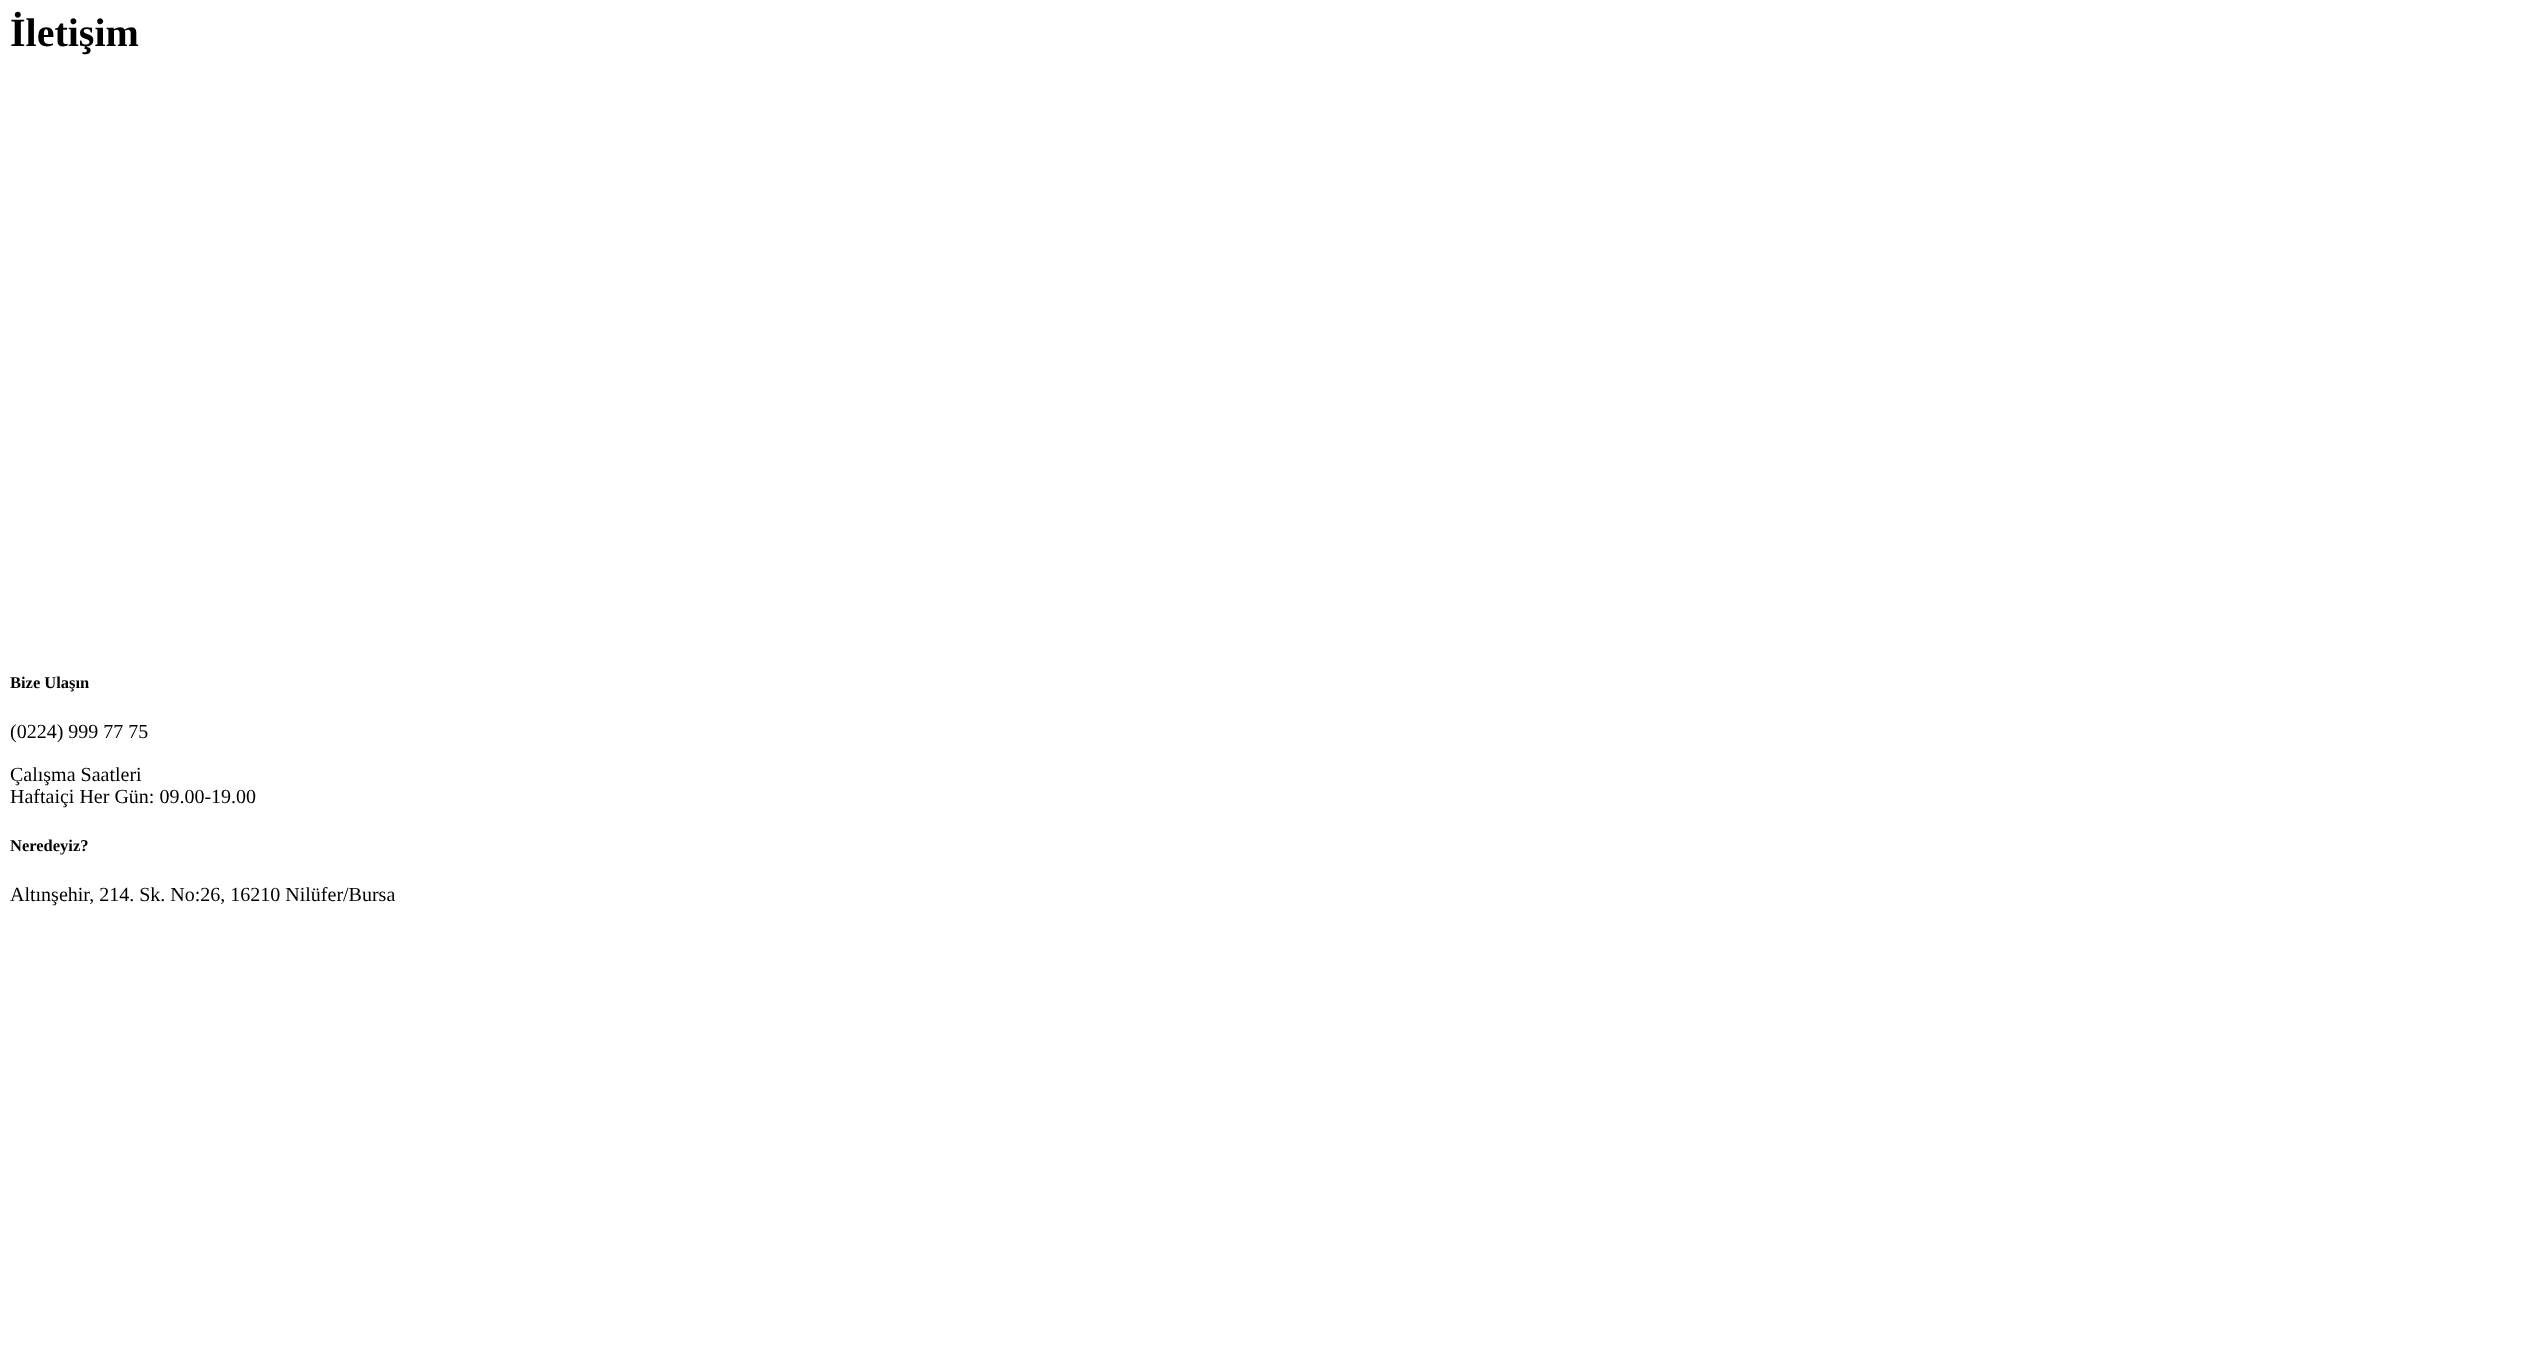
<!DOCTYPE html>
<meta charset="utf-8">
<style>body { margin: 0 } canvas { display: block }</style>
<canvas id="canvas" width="2547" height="1355"></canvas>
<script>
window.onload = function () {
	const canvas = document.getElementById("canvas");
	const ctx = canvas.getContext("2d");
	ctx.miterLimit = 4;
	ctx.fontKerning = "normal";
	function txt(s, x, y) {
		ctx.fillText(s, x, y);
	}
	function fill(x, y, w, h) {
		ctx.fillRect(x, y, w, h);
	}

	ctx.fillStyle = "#FFFFFF";
	fill(0, 0, 2547, 1355);
	ctx.font = "bold 40px Liberation Serif";
	ctx.fillStyle = "#000000";
	txt("İletişim", 10, 46);
	ctx.font = "bold 16.5px Liberation Serif";
	txt("Bize Ulaşın", 10, 688);
	ctx.font = "20px Liberation Serif";
	txt("(0224) 999 77 75", 10, 738);
	txt("Çalışma Saatleri", 10, 781);
	txt("Haftaiçi Her Gün: 09.00-19.00", 10, 803);
	ctx.font = "bold 16.5px Liberation Serif";
	txt("Neredeyiz?", 10, 851);
	ctx.font = "20px Liberation Serif";
	txt("Altınşehir, 214. Sk. No:26, 16210 Nilüfer/Bursa", 10, 901);
};
</script>
